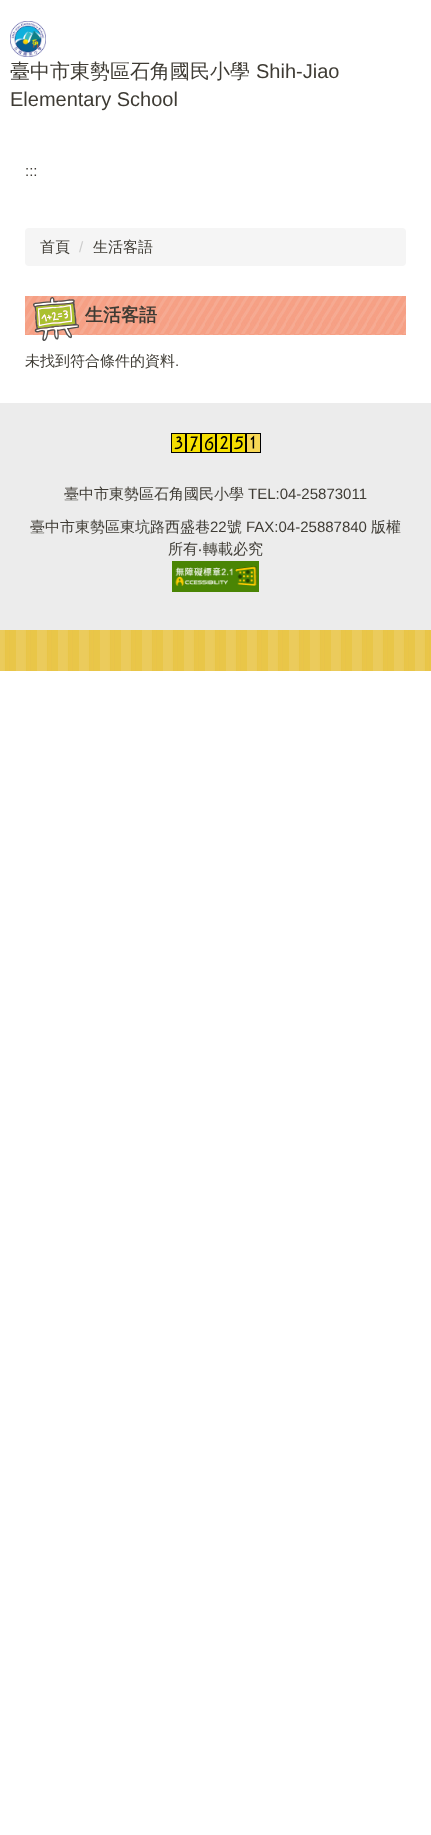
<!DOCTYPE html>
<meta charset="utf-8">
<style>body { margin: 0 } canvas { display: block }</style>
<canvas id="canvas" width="431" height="1835"></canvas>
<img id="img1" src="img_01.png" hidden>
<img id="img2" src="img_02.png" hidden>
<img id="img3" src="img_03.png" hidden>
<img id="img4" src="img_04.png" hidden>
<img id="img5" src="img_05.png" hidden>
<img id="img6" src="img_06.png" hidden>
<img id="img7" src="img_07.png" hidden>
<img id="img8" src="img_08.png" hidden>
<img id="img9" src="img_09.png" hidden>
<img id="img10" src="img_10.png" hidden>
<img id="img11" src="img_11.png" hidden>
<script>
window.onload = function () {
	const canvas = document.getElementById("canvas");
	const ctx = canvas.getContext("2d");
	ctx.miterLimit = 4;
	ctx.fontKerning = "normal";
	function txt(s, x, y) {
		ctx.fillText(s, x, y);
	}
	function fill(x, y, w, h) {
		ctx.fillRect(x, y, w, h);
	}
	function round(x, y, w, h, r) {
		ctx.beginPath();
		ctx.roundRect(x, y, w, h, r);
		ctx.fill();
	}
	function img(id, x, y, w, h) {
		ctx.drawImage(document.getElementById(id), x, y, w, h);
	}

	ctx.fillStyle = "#FFFFFF";
	fill(0, 0, 431, 1835);
	img("img1", 10, 21, 36, 36);
	ctx.fillStyle = "#F5F5F5";
	round(25, 228, 381, 38, 4);
	img("img2", 25, 296, 381, 39);
	img("img3", 33, 297, 46, 44);
	img("img4", 0, 630, 431, 41);
	ctx.fillStyle = "#ECECEC";
	fill(0, 403, 431, 227);
	img("img5", 171, 433, 15, 20);
	img("img6", 186, 433, 15, 20);
	img("img7", 201, 433, 15, 20);
	img("img8", 216, 433, 15, 20);
	img("img9", 231, 433, 15, 20);
	img("img10", 246, 433, 15, 20);
	img("img11", 172, 561, 87, 31);
	ctx.font = "500 20px WenQuanYi Zen Hei";
	ctx.fillStyle = "#3E3B34";
	txt("臺中市東勢區石角國民小學", 10, 78);
	ctx.font = "20px Liberation Sans";
	txt("Shih-Jiao", 256, 78);
	txt("Elementary School", 10, 106);
	ctx.font = "15px Liberation Sans";
	txt(":::", 25, 176);
	ctx.font = "500 15px WenQuanYi Zen Hei";
	txt("首頁", 40, 252);
	ctx.font = "15px Liberation Sans";
	ctx.fillStyle = "#CCCCCC";
	txt("/", 79, 252);
	ctx.font = "500 15px WenQuanYi Zen Hei";
	ctx.fillStyle = "#3E3B34";
	txt("生活客語", 93, 252);
	ctx.font = "bold 18px WenQuanYi Zen Hei";
	txt("生活客語", 85, 321);
	ctx.font = "500 15px WenQuanYi Zen Hei";
	txt("未找到符合條件的資料", 25, 366);
	ctx.font = "15px Liberation Sans";
	txt(".", 175, 366);
	ctx.font = "500 15px WenQuanYi Zen Hei";
	txt("臺中市東勢區石角國民小學", 64, 499);
	ctx.font = "15px Liberation Sans";
	txt("TEL:04-25873011", 248, 499);
	ctx.font = "500 15px WenQuanYi Zen Hei";
	txt("臺中市東勢區東坑路西盛巷", 30, 532);
	ctx.font = "15px Liberation Sans";
	txt("22", 210, 532);
	ctx.font = "500 15px WenQuanYi Zen Hei";
	txt("號", 227, 532);
	ctx.font = "15px Liberation Sans";
	txt("FAX:04-25887840", 246, 532);
	ctx.font = "500 15px WenQuanYi Zen Hei";
	txt("版權", 371, 532);
	txt("所有", 168, 554);
	ctx.font = "15px Noto Sans";
	txt("‧", 198, 554);
	ctx.font = "500 15px WenQuanYi Zen Hei";
	txt("轉載必究", 203, 554);
};
</script>
